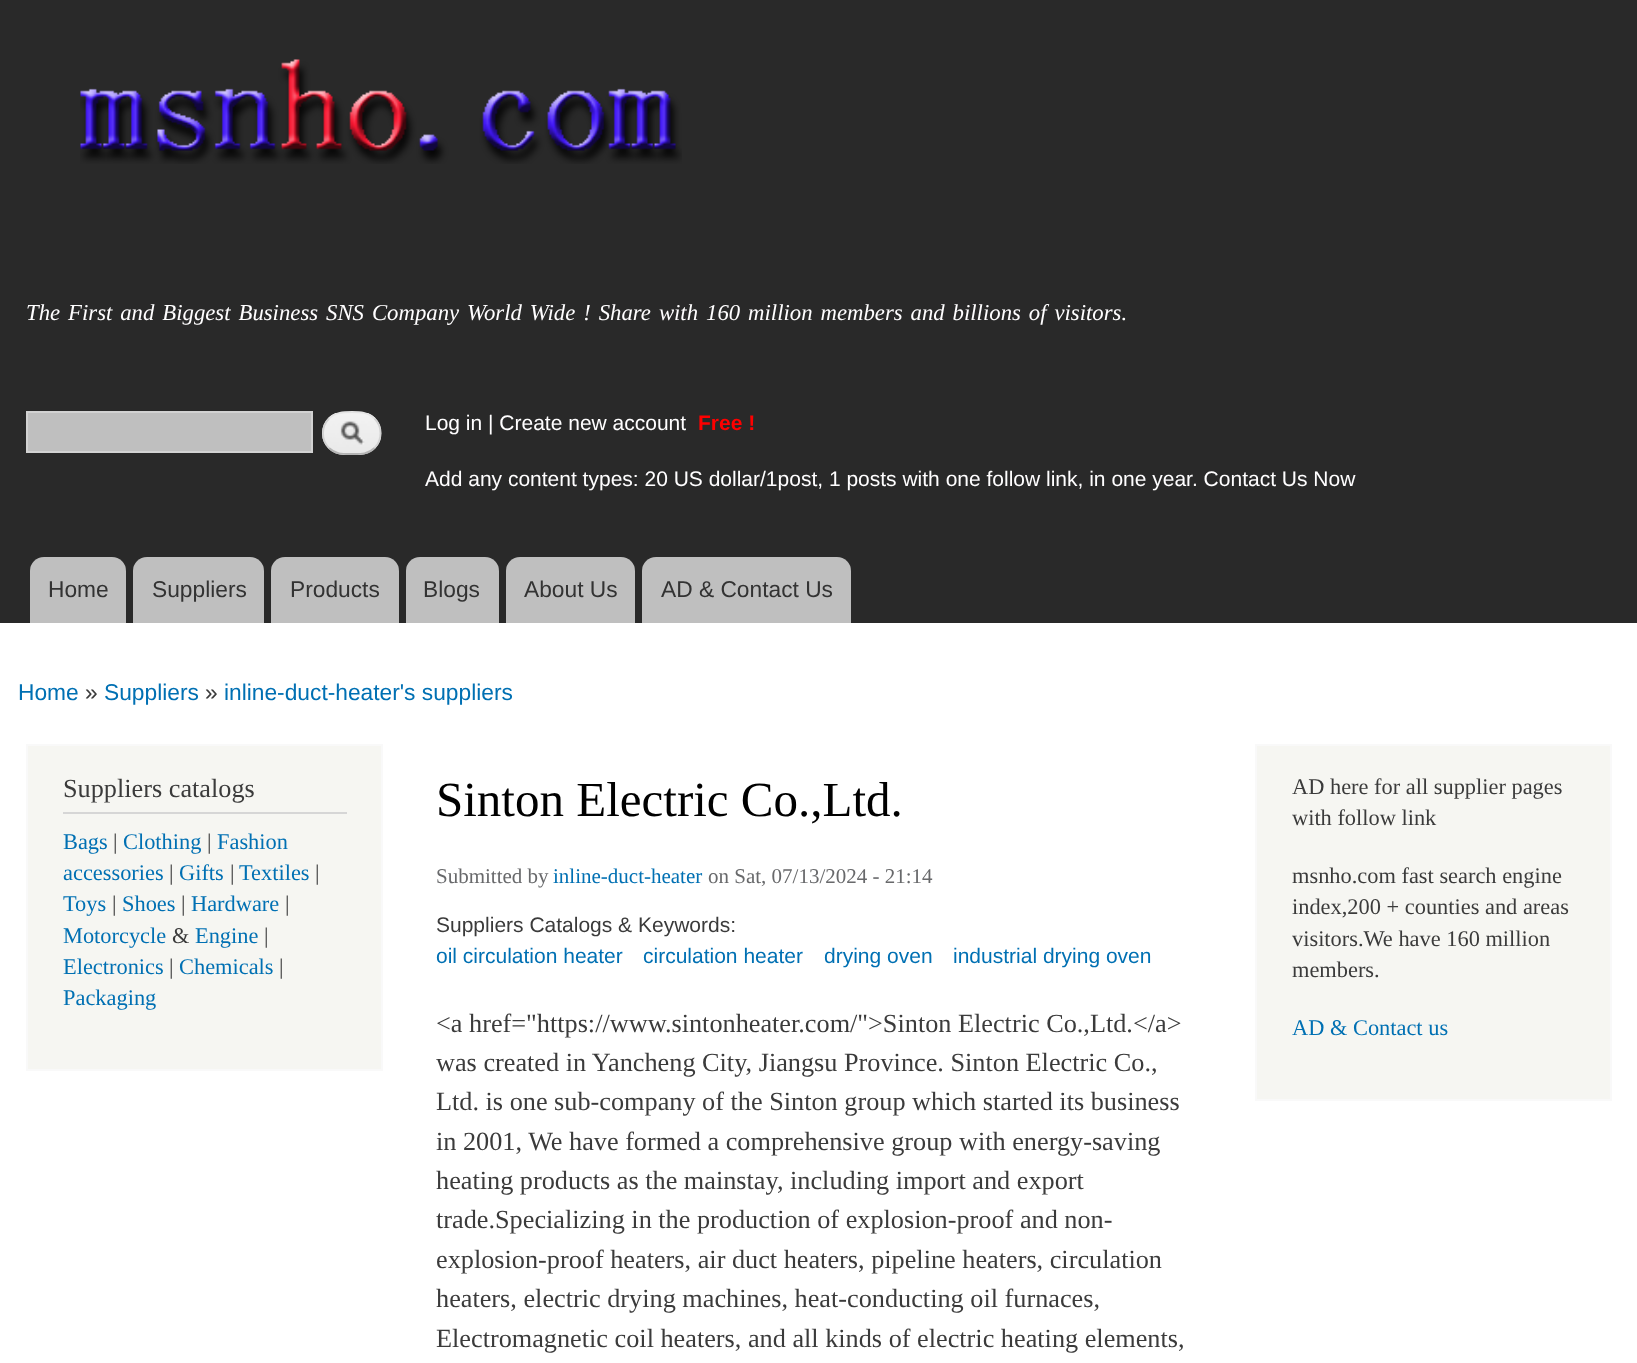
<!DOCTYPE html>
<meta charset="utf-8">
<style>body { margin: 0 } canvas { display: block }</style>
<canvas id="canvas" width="1637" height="1363"></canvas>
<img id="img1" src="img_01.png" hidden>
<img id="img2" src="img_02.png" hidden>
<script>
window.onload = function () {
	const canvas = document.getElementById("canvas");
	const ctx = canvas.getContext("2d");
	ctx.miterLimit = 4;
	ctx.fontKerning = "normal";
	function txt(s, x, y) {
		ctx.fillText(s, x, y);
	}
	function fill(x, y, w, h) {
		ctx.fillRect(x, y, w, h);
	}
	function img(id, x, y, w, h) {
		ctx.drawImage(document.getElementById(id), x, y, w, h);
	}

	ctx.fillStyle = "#FFFFFF";
	fill(0, 0, 1637, 1363);
	ctx.fillStyle = "#292929";
	fill(0, 0, 1637, 623);
	img("img1", 80, 59, 602, 105);
	ctx.fillStyle = "#BFBFBF";
	ctx.beginPath();
	ctx.rect(27, 412, 285, 40);
	ctx.fill();
	ctx.strokeStyle = "#D2D2D2";
	ctx.lineWidth = 2;
	ctx.stroke();
	img("img2", 322, 413, 60, 42);
	ctx.beginPath();
	ctx.moveTo(329, 418.5);
	ctx.bezierCurveTo(335.5, 412, 343.5, 412, 352, 412);
	ctx.bezierCurveTo(360, 412, 368, 412, 374.5, 418.5);
	ctx.strokeStyle = "#E4E4E4";
	ctx.lineWidth = 1.8;
	ctx.stroke();
	ctx.beginPath();
	ctx.moveTo(374.5, 418.5);
	ctx.bezierCurveTo(382.5, 426.5, 382.5, 440, 374.5, 448);
	ctx.strokeStyle = "#D2D2D2";
	ctx.stroke();
	ctx.beginPath();
	ctx.moveTo(374.5, 448);
	ctx.bezierCurveTo(368, 454.5, 360, 454, 352, 454);
	ctx.bezierCurveTo(343.5, 454, 335.5, 454.5, 329, 448);
	ctx.strokeStyle = "#B4B4B4";
	ctx.stroke();
	ctx.beginPath();
	ctx.moveTo(329, 448);
	ctx.bezierCurveTo(321, 440, 321, 426.5, 329, 418.5);
	ctx.strokeStyle = "#D2D2D2";
	ctx.stroke();
	ctx.beginPath();
	ctx.roundRect(30, 557, 96, 66, [14, 14, 0, 0]);
	ctx.fill();
	ctx.beginPath();
	ctx.roundRect(133, 557, 131, 66, [14, 14, 0, 0]);
	ctx.fill();
	ctx.beginPath();
	ctx.roundRect(271, 557, 128, 66, [14, 14, 0, 0]);
	ctx.fill();
	ctx.beginPath();
	ctx.roundRect(406, 557, 93, 66, [14, 14, 0, 0]);
	ctx.fill();
	ctx.beginPath();
	ctx.roundRect(506, 557, 129, 66, [14, 14, 0, 0]);
	ctx.fill();
	ctx.beginPath();
	ctx.roundRect(642, 557, 209, 66, [14, 14, 0, 0]);
	ctx.fill();
	ctx.fillStyle = "#F6F6F2";
	ctx.beginPath();
	ctx.rect(27, 745, 355, 325);
	ctx.fill();
	ctx.strokeStyle = "#F9F9F9";
	ctx.lineWidth = 2;
	ctx.stroke();
	ctx.fillStyle = "#D6D6D6";
	fill(63, 812, 284, 2);
	ctx.fillStyle = "#F6F6F2";
	ctx.beginPath();
	ctx.rect(1256, 745, 355, 355);
	ctx.fill();
	ctx.stroke();
	ctx.wordSpacing = "2.25px";
	ctx.font = "italic 22.75px Liberation Serif";
	ctx.fillStyle = "#FFFEFF";
	txt("The First and Biggest Business SNS Company World Wide ! Share with 160 million members and billions of visitors.", 26, 320);
	ctx.wordSpacing = "0px";
	ctx.font = "21px Liberation Sans";
	txt("Log in | Create new account", 425, 430);
	ctx.font = "bold 21px Liberation Sans";
	ctx.fillStyle = "#FF0000";
	txt("Free !", 698, 430);
	ctx.font = "21px Liberation Sans";
	ctx.fillStyle = "#FFFEFF";
	txt("Add any content types: 20 US dollar/1post, 1 posts with one follow link, in one year. Contact Us Now", 425, 486);
	ctx.font = "22.75px Liberation Sans";
	ctx.fillStyle = "#333333";
	txt("Home", 48, 597);
	txt("Suppliers", 152, 597);
	txt("Products", 290, 597);
	txt("Blogs", 423, 597);
	txt("About Us", 524, 597);
	txt("AD & Contact Us", 661, 597);
	ctx.fillStyle = "#0070B3";
	txt("Home", 18, 700);
	ctx.fillStyle = "#3B3B3B";
	txt("»", 85, 700);
	ctx.fillStyle = "#0070B3";
	txt("Suppliers", 104, 700);
	ctx.fillStyle = "#3B3B3B";
	txt("»", 205, 700);
	ctx.fillStyle = "#0070B3";
	txt("inline-duct-heater's suppliers", 224, 700);
	ctx.font = "26.25px Liberation Serif";
	ctx.fillStyle = "#3B3B3B";
	txt("Suppliers catalogs", 63, 797);
	ctx.font = "22.4px Liberation Serif";
	ctx.fillStyle = "#0070B3";
	txt("Bags", 63, 849);
	ctx.fillStyle = "#3B3B3B";
	txt("|", 113, 849);
	ctx.fillStyle = "#0070B3";
	txt("Clothing", 123, 849);
	ctx.fillStyle = "#3B3B3B";
	txt("|", 207, 849);
	ctx.fillStyle = "#0070B3";
	txt("Fashion", 217, 849);
	txt("accessories", 63, 880);
	ctx.fillStyle = "#3B3B3B";
	txt("|", 169, 880);
	ctx.fillStyle = "#0070B3";
	txt("Gifts", 179, 880);
	ctx.fillStyle = "#3B3B3B";
	txt("|", 230, 880);
	ctx.fillStyle = "#0070B3";
	txt("Textiles", 239, 880);
	ctx.fillStyle = "#3B3B3B";
	txt("|", 315, 880);
	ctx.fillStyle = "#0070B3";
	txt("Toys", 63, 911);
	ctx.fillStyle = "#3B3B3B";
	txt("|", 112, 911);
	ctx.fillStyle = "#0070B3";
	txt("Shoes", 122, 911);
	ctx.fillStyle = "#3B3B3B";
	txt("|", 181, 911);
	ctx.fillStyle = "#0070B3";
	txt("Hardware", 191, 911);
	ctx.fillStyle = "#3B3B3B";
	txt("|", 285, 911);
	ctx.fillStyle = "#0070B3";
	txt("Motorcycle", 63, 943);
	ctx.fillStyle = "#3B3B3B";
	txt("&", 172, 943);
	ctx.fillStyle = "#0070B3";
	txt("Engine", 195, 943);
	ctx.fillStyle = "#3B3B3B";
	txt("|", 264, 943);
	ctx.fillStyle = "#0070B3";
	txt("Electronics", 63, 974);
	ctx.fillStyle = "#3B3B3B";
	txt("|", 169, 974);
	ctx.fillStyle = "#0070B3";
	txt("Chemicals", 179, 974);
	ctx.fillStyle = "#3B3B3B";
	txt("|", 279, 974);
	ctx.fillStyle = "#0070B3";
	txt("Packaging", 63, 1005);
	ctx.font = "49px Liberation Serif";
	ctx.fillStyle = "#000000";
	txt("Sinton Electric Co.,Ltd.", 436, 816);
	ctx.font = "21px Liberation Serif";
	ctx.fillStyle = "#68696B";
	txt("Submitted by", 436, 883);
	ctx.fillStyle = "#0070B3";
	txt("inline-duct-heater", 553, 883);
	ctx.fillStyle = "#68696B";
	txt("on Sat, 07/13/2024 - 21:14", 708, 883);
	ctx.font = "21px Liberation Sans";
	ctx.fillStyle = "#3B3B3B";
	txt("Suppliers Catalogs & Keywords:", 436, 932);
	ctx.fillStyle = "#0070B3";
	txt("oil circulation heater", 436, 963);
	txt("circulation heater", 643, 963);
	txt("drying oven", 824, 963);
	txt("industrial drying oven", 953, 963);
	ctx.font = "26.25px Liberation Serif";
	ctx.fillStyle = "#3B3B3B";
	txt("<a href=\"https://www.sintonheater.com/\">Sinton Electric Co.,Ltd.<\/a>", 436, 1032);
	txt("was created in Yancheng City, Jiangsu Province. Sinton Electric Co.,", 436, 1071);
	txt("Ltd. is one sub-company of the Sinton group which started its business", 436, 1110);
	txt("in 2001, We have formed a comprehensive group with energy-saving", 436, 1150);
	txt("heating products as the mainstay, including import and export", 436, 1189);
	txt("trade.Specializing in the production of explosion-proof and non-", 436, 1228);
	txt("explosion-proof heaters, air duct heaters, pipeline heaters, circulation", 436, 1268);
	txt("heaters, electric drying machines, heat-conducting oil furnaces,", 436, 1307);
	txt("Electromagnetic coil heaters, and all kinds of electric heating elements,", 436, 1347);
	ctx.font = "22.4px Liberation Serif";
	txt("AD here for all supplier pages", 1292, 794);
	txt("with follow link", 1292, 825);
	txt("msnho.com fast search engine", 1292, 883);
	txt("index,200 + counties and areas", 1292, 914);
	txt("visitors.We have 160 million", 1292, 946);
	txt("members.", 1292, 977);
	ctx.fillStyle = "#0070B3";
	txt("AD & Contact us", 1292, 1035);
};
</script>
